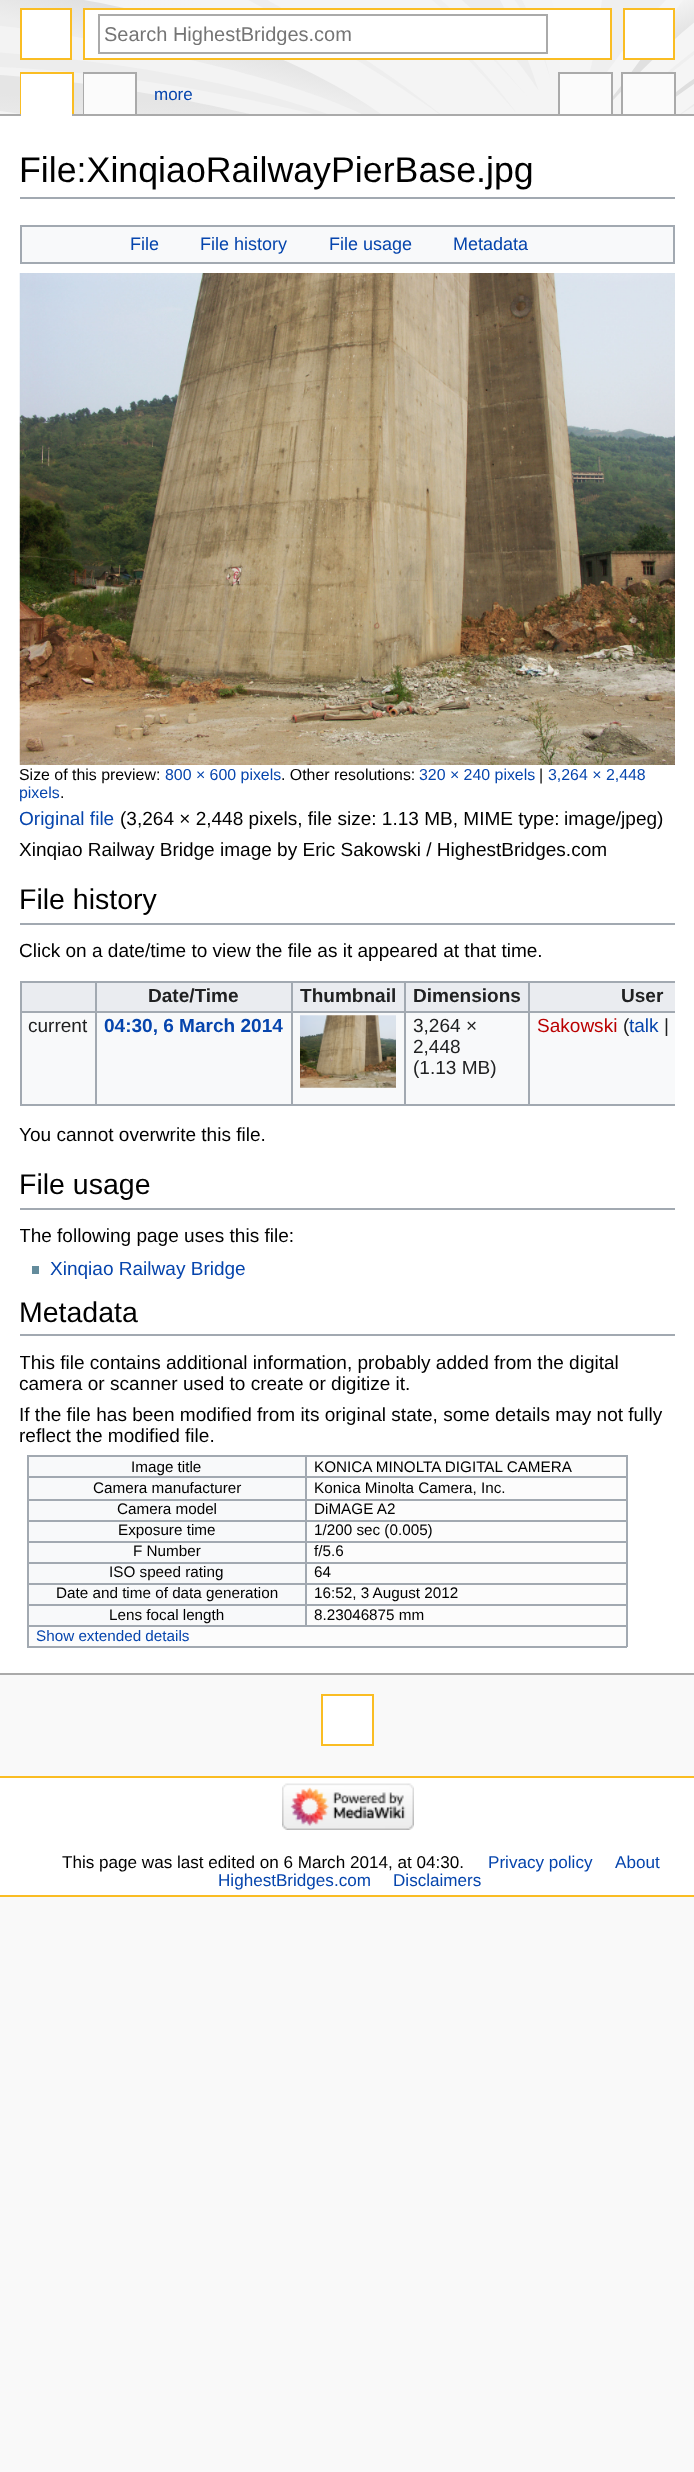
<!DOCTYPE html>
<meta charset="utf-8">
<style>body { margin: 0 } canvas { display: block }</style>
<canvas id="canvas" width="694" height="2472"></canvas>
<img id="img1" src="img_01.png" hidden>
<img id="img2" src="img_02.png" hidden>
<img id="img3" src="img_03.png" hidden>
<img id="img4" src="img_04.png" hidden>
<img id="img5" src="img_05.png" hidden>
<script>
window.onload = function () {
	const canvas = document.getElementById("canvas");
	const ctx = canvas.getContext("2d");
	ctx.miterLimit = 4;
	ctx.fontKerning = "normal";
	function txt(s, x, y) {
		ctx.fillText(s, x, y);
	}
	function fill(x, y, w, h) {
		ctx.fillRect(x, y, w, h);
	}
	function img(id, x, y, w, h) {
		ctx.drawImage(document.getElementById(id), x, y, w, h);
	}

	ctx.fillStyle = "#F9F9F9";
	fill(0, 0, 694, 2472);
	img("img1", 0, 0, 694, 114);
	ctx.fillStyle = "#FFFFFF";
	ctx.beginPath();
	ctx.rect(21, 9, 50, 50);
	ctx.fill();
	ctx.strokeStyle = "#FABD23";
	ctx.lineWidth = 2;
	ctx.stroke();
	ctx.beginPath();
	ctx.rect(84, 9, 527, 50);
	ctx.fill();
	ctx.stroke();
	ctx.strokeStyle = "#AAAAAA";
	ctx.strokeRect(99, 15, 448, 38);
	ctx.beginPath();
	ctx.rect(624, 9, 50, 50);
	ctx.fill();
	ctx.strokeStyle = "#FABD23";
	ctx.stroke();
	ctx.fillStyle = "#FABD23";
	fill(20, 72, 54, 2);
	fill(72, 72, 2, 44);
	fill(20, 72, 2, 44);
	ctx.fillStyle = "#AAAAAA";
	fill(83, 72, 54, 2);
	fill(135, 72, 2, 44);
	fill(83, 72, 2, 44);
	fill(558, 72, 54, 2);
	fill(611, 72, 2, 44);
	fill(558, 72, 2, 44);
	fill(621, 72, 54, 2);
	fill(674, 72, 2, 44);
	fill(621, 72, 2, 44);
	fill(0, 114, 694, 2);
	ctx.fillStyle = "#FFFFFF";
	fill(21, 74, 51, 42);
	ctx.fillStyle = "#FBFBFB";
	fill(84, 74, 51, 40);
	fill(560, 74, 51, 40);
	fill(623, 74, 51, 40);
	ctx.fillStyle = "#FFFFFF";
	ctx.beginPath();
	ctx.rect(322, 1695, 51, 50);
	ctx.fill();
	ctx.stroke();
	fill(0, 116, 694, 1557);
	ctx.fillStyle = "#AAAAAA";
	fill(0, 1673, 694, 2);
	ctx.fillStyle = "#A2A9B1";
	fill(20, 197, 655, 2);
	ctx.fillStyle = "#F8F9FA";
	ctx.beginPath();
	ctx.rect(21, 226, 653, 37);
	ctx.fill();
	ctx.strokeStyle = "#A2A9B1";
	ctx.stroke();
	img("img2", 19, 273, 656, 492);
	ctx.fillStyle = "#A2A9B1";
	fill(20, 923, 655, 2);
	ctx.fillStyle = "#F8F9FA";
	fill(22, 1013, 653, 91);
	ctx.fillStyle = "#A2A9B1";
	fill(20, 981, 655, 2);
	fill(20, 1104, 655, 2);
	fill(20, 981, 2, 125);
	ctx.fillStyle = "#EAECF0";
	fill(22, 983, 73, 28);
	fill(97, 983, 194, 28);
	ctx.fillStyle = "#A2A9B1";
	fill(528, 1011, 147, 2);
	fill(528, 1011, 2, 95);
	fill(404, 1011, 126, 2);
	fill(404, 1011, 2, 95);
	fill(291, 1011, 114, 2);
	fill(291, 1011, 2, 95);
	fill(95, 1011, 198, 2);
	fill(95, 1011, 2, 95);
	fill(20, 1011, 76, 2);
	fill(95, 981, 2, 32);
	ctx.fillStyle = "#EAECF0";
	fill(293, 983, 111, 28);
	ctx.fillStyle = "#A2A9B1";
	fill(291, 981, 2, 32);
	ctx.fillStyle = "#EAECF0";
	fill(406, 983, 122, 28);
	ctx.fillStyle = "#A2A9B1";
	fill(404, 981, 2, 32);
	ctx.fillStyle = "#EAECF0";
	fill(530, 983, 145, 28);
	ctx.fillStyle = "#A2A9B1";
	fill(528, 981, 2, 32);
	img("img3", 300, 1015, 96, 73);
	img("img4", 300, 1015, 96, 73);
	fill(20, 1208, 655, 2);
	ctx.fillStyle = "#638C9C";
	fill(32, 1266, 7, 8);
	ctx.fillStyle = "#A2A9B1";
	fill(20, 1334, 655, 2);
	ctx.fillStyle = "#F8F9FA";
	fill(29, 1457, 276, 19);
	ctx.fillStyle = "#A2A9B1";
	fill(305, 1455, 322, 2);
	fill(305, 1476, 322, 2);
	fill(305, 1499, 322, 2);
	fill(305, 1520, 322, 2);
	fill(305, 1541, 322, 2);
	fill(305, 1562, 322, 2);
	fill(305, 1583, 322, 2);
	fill(305, 1604, 322, 2);
	fill(27, 1625, 600, 2);
	fill(305, 1604, 2, 22);
	fill(27, 1604, 279, 2);
	fill(305, 1583, 2, 22);
	fill(27, 1583, 279, 2);
	fill(305, 1562, 2, 22);
	fill(27, 1562, 279, 2);
	fill(305, 1541, 2, 22);
	fill(27, 1541, 279, 2);
	fill(305, 1520, 2, 22);
	fill(27, 1520, 279, 2);
	fill(305, 1499, 2, 22);
	fill(27, 1499, 279, 2);
	fill(305, 1476, 2, 24);
	fill(27, 1476, 279, 2);
	fill(305, 1455, 2, 23);
	fill(27, 1455, 279, 2);
	fill(626, 1625, 2, 22);
	fill(27, 1646, 600, 2);
	fill(27, 1625, 2, 22);
	fill(27, 1604, 2, 22);
	fill(27, 1583, 2, 22);
	fill(27, 1562, 2, 22);
	fill(27, 1541, 2, 22);
	fill(27, 1520, 2, 22);
	fill(27, 1499, 2, 22);
	fill(27, 1476, 2, 24);
	fill(27, 1455, 2, 23);
	ctx.fillStyle = "#FCFCFC";
	fill(307, 1457, 319, 19);
	ctx.fillStyle = "#A2A9B1";
	fill(626, 1604, 2, 22);
	fill(626, 1583, 2, 22);
	fill(626, 1562, 2, 22);
	fill(626, 1541, 2, 22);
	fill(626, 1520, 2, 22);
	fill(626, 1499, 2, 22);
	fill(626, 1476, 2, 24);
	fill(626, 1455, 2, 23);
	ctx.fillStyle = "#F8F9FA";
	fill(29, 1478, 276, 21);
	ctx.fillStyle = "#FCFCFC";
	fill(307, 1478, 319, 21);
	ctx.fillStyle = "#F8F9FA";
	fill(29, 1501, 276, 19);
	ctx.fillStyle = "#FCFCFC";
	fill(307, 1501, 319, 19);
	ctx.fillStyle = "#F8F9FA";
	fill(29, 1522, 276, 19);
	ctx.fillStyle = "#FCFCFC";
	fill(307, 1522, 319, 19);
	ctx.fillStyle = "#F8F9FA";
	fill(29, 1543, 276, 19);
	ctx.fillStyle = "#FCFCFC";
	fill(307, 1543, 319, 19);
	ctx.fillStyle = "#F8F9FA";
	fill(29, 1564, 276, 19);
	ctx.fillStyle = "#FCFCFC";
	fill(307, 1564, 319, 19);
	ctx.fillStyle = "#F8F9FA";
	fill(29, 1585, 276, 19);
	ctx.fillStyle = "#FCFCFC";
	fill(307, 1585, 319, 19);
	ctx.fillStyle = "#F8F9FA";
	fill(29, 1606, 276, 19);
	ctx.fillStyle = "#FCFCFC";
	fill(307, 1606, 319, 19);
	fill(29, 1627, 597, 19);
	ctx.fillStyle = "#FFFFFF";
	fill(0, 1778, 694, 117);
	ctx.fillStyle = "#FABD23";
	fill(0, 1776, 694, 2);
	fill(0, 1895, 694, 2);
	img("img5", 282, 1783, 132, 47);
	ctx.save();
	ctx.beginPath();
	ctx.rect(104, 23, 418, 22);
	ctx.clip();
	ctx.font = "20px Liberation Sans";
	ctx.fillStyle = "#757575";
	txt("Search HighestBridges.com", 104, 41);
	ctx.restore();
	ctx.font = "17px Liberation Sans";
	ctx.fillStyle = "#0645AD";
	txt("more", 154, 100);
	ctx.font = "35.75px Liberation Sans";
	ctx.fillStyle = "#000000";
	txt("File:XinqiaoRailwayPierBase.jpg", 19, 182);
	ctx.font = "18px Liberation Sans";
	ctx.fillStyle = "#0645AD";
	txt("File", 130, 250);
	txt("File history", 200, 250);
	txt("File usage", 329, 250);
	txt("Metadata", 453, 250);
	ctx.font = "15.9px Liberation Sans";
	ctx.fillStyle = "#000000";
	txt("Size of this preview:", 19, 780);
	ctx.fillStyle = "#0645AD";
	txt("800 × 600 pixels", 165, 780);
	ctx.fillStyle = "#000000";
	txt(". Other resolutions:", 281, 780);
	ctx.fillStyle = "#0645AD";
	txt("320 × 240 pixels", 419, 780);
	ctx.fillStyle = "#000000";
	txt("|", 539, 780);
	ctx.fillStyle = "#0645AD";
	txt("3,264 × 2,448", 548, 780);
	txt("pixels", 19, 798);
	ctx.fillStyle = "#000000";
	txt(".", 60, 798);
	ctx.font = "19.05px Liberation Sans";
	ctx.fillStyle = "#0645AD";
	txt("Original file", 19, 825);
	ctx.fillStyle = "#000000";
	txt("(3,264 × 2,448 pixels, file size: 1.13 MB, MIME type:", 120, 825);
	txt("image/jpeg)", 564, 825);
	txt("Xinqiao Railway Bridge image by Eric Sakowski / HighestBridges.com", 19, 856);
	ctx.font = "28.5px Liberation Sans";
	txt("File history", 19, 909);
	ctx.font = "19.05px Liberation Sans";
	txt("Click on a date/time to view the file as it appeared at that time.", 19, 957);
	ctx.font = "bold 19.05px Liberation Sans";
	ctx.fillStyle = "#202122";
	txt("Date/Time", 148, 1002);
	txt("Thumbnail", 300, 1002);
	txt("Dimensions", 413, 1002);
	txt("User", 621, 1002);
	ctx.font = "19.05px Liberation Sans";
	txt("current", 28, 1032);
	ctx.font = "bold 19.05px Liberation Sans";
	ctx.fillStyle = "#0645AD";
	txt("04:30, 6 March 2014", 104, 1032);
	ctx.font = "19.05px Liberation Sans";
	ctx.fillStyle = "#202122";
	txt("3,264 ×", 413, 1032);
	txt("2,448", 413, 1053);
	txt("(1.13 MB)", 413, 1074);
	ctx.fillStyle = "#BA0000";
	txt("Sakowski", 537, 1032);
	ctx.fillStyle = "#202122";
	txt("(", 623, 1032);
	ctx.fillStyle = "#0645AD";
	txt("talk", 629, 1032);
	ctx.fillStyle = "#202122";
	txt("|", 664, 1032);
	ctx.fillStyle = "#000000";
	txt("You cannot overwrite this file.", 19, 1141);
	ctx.font = "28.5px Liberation Sans";
	txt("File usage", 19, 1194);
	ctx.save();
	ctx.beginPath();
	ctx.rect(20, 203, 655, 1452);
	ctx.clip();
	ctx.font = "19.05px Liberation Sans";
	txt("The following page uses this file:", 19, 1242);
	ctx.restore();
	ctx.font = "19.05px Liberation Sans";
	ctx.fillStyle = "#0645AD";
	txt("Xinqiao Railway Bridge", 50, 1275);
	ctx.font = "28.5px Liberation Sans";
	ctx.fillStyle = "#000000";
	txt("Metadata", 19, 1322);
	ctx.save();
	ctx.beginPath();
	ctx.rect(20, 203, 655, 1452);
	ctx.clip();
	ctx.font = "19.05px Liberation Sans";
	txt("This file contains additional information, probably added from the digital", 19, 1369);
	ctx.restore();
	ctx.font = "19.05px Liberation Sans";
	txt("camera or scanner used to create or digitize it.", 19, 1390);
	txt("If the file has been modified from its original state, some details may not fully", 19, 1421);
	txt("reflect the modified file.", 19, 1442);
	ctx.font = "15.25px Liberation Sans";
	txt("Image title", 131, 1472);
	txt("KONICA MINOLTA DIGITAL CAMERA", 314, 1472);
	txt("Camera manufacturer", 93, 1493);
	txt("Konica Minolta Camera, Inc.", 314, 1493);
	txt("Camera model", 117, 1514);
	txt("DiMAGE A2", 314, 1514);
	txt("Exposure time", 118, 1535);
	txt("1/200 sec (0.005)", 314, 1535);
	txt("F Number", 133, 1556);
	txt("f/5.6", 314, 1556);
	txt("ISO speed rating", 109, 1577);
	txt("64", 314, 1577);
	txt("Date and time of data generation", 56, 1598);
	txt("16:52, 3 August 2012", 314, 1598);
	txt("Lens focal length", 109, 1620);
	txt("8.23046875 mm", 314, 1620);
	ctx.fillStyle = "#0645AD";
	txt("Show extended details", 36, 1641);
	ctx.font = "17.1px Liberation Sans";
	ctx.fillStyle = "#000000";
	txt("This page was last edited on 6 March 2014, at 04:30.", 62, 1868);
	ctx.fillStyle = "#0645AD";
	txt("Privacy policy", 488, 1868);
	txt("About", 615, 1868);
	txt("HighestBridges.com", 218, 1886);
	txt("Disclaimers", 393, 1886);
};
</script>
